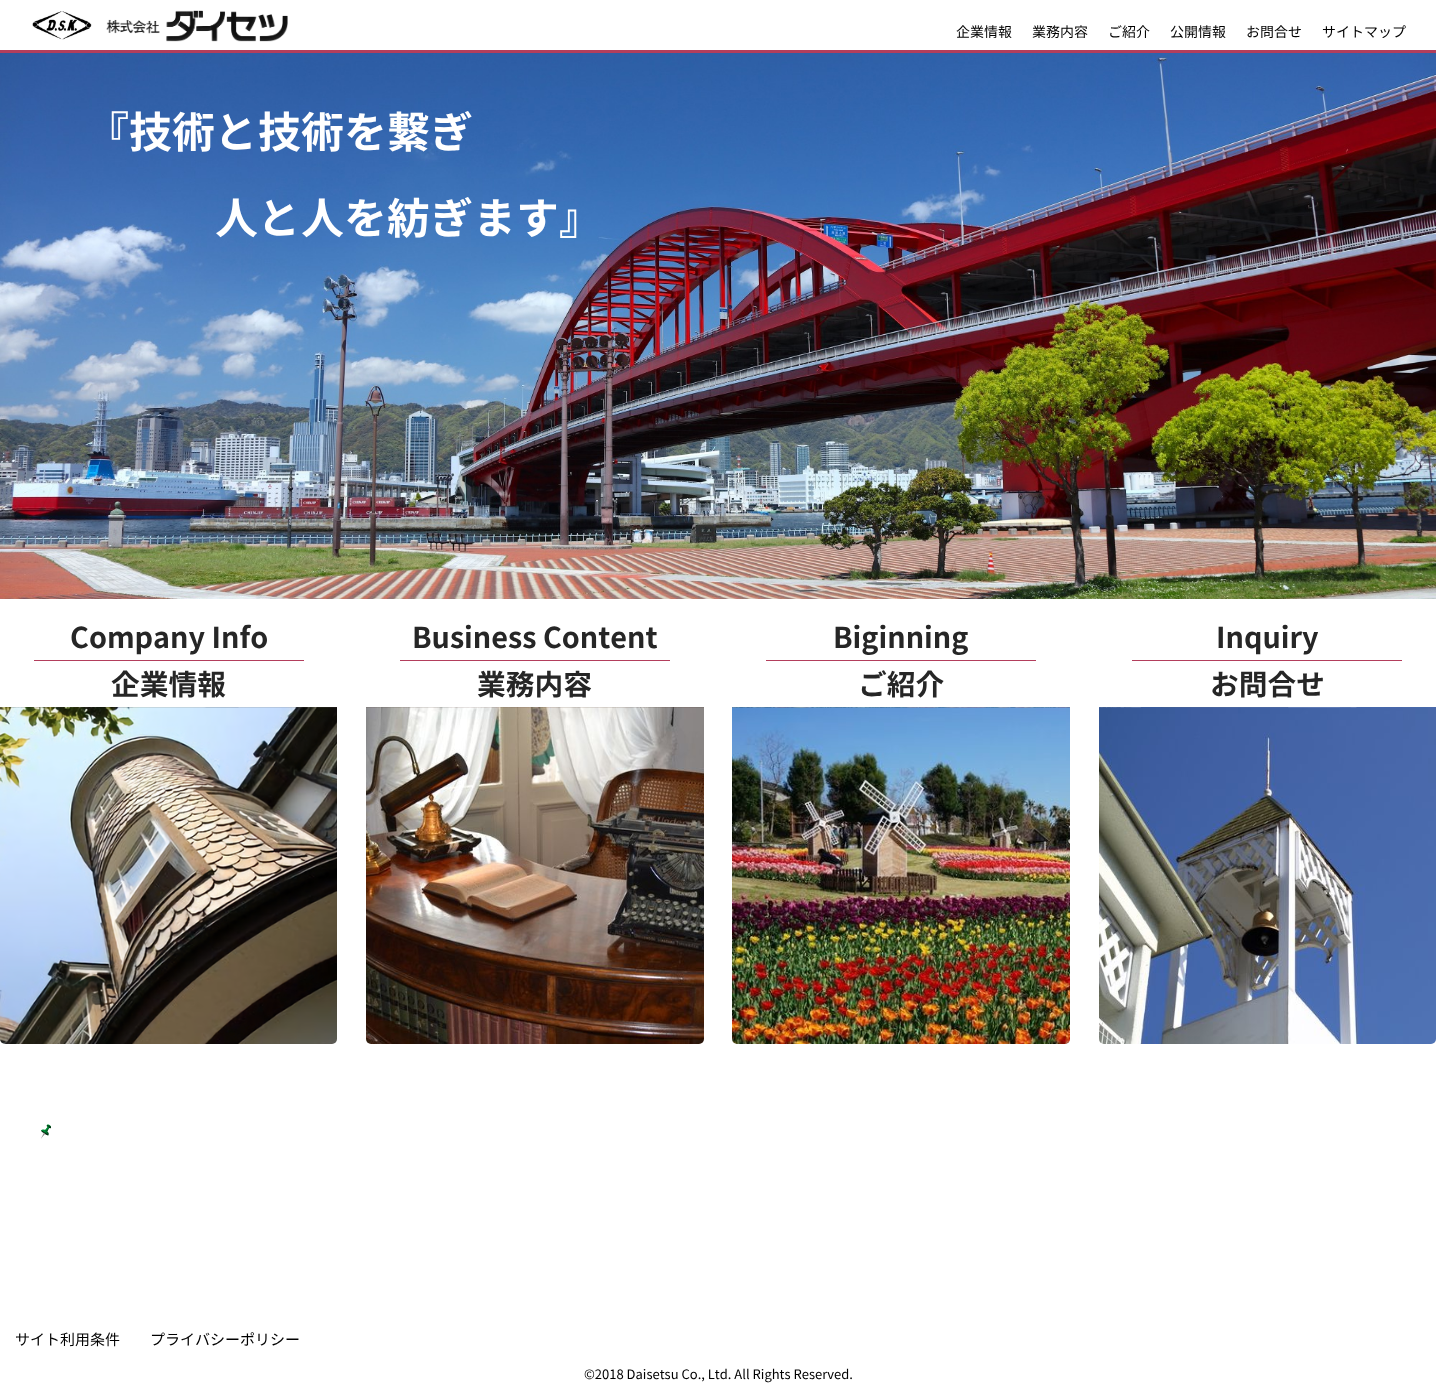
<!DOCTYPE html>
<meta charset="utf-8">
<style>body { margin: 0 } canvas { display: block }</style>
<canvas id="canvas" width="1436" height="1390"></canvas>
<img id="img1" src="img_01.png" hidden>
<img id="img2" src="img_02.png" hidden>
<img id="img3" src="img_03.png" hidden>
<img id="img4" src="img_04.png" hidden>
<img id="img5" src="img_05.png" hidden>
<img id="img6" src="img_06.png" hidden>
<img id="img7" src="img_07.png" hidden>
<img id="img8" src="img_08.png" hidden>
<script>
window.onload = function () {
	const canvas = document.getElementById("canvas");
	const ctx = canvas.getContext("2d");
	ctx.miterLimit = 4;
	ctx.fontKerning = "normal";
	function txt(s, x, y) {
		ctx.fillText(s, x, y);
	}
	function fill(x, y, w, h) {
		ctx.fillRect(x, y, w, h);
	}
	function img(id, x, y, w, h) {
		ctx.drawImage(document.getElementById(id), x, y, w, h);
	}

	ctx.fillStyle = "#FFFFFF";
	fill(0, 0, 1436, 1390);
	ctx.fillStyle = "#B33E5C";
	fill(0, 50, 1436, 3);
	img("img1", 32, 11, 60, 29);
	img("img2", 106, 10, 182, 32);
	img("img3", 0, 53, 1436, 546);
	fill(34, 660, 270, 1);
	img("img4", 0, 707, 337, 337);
	fill(400, 660, 270, 1);
	img("img5", 366, 707, 338, 337);
	fill(766, 660, 270, 1);
	img("img6", 732, 707, 338, 337);
	fill(1132, 660, 270, 1);
	img("img7", 1099, 707, 337, 337);
	img("img8", 41, 1124, 10, 15);
	ctx.font = "14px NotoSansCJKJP";
	ctx.fillStyle = "#000000";
	txt("企業情報", 956, 37);
	txt("業務内容", 1032, 37);
	txt("ご紹介", 1108, 37);
	txt("公開情報", 1170, 37);
	txt("お問合せ", 1246, 37);
	txt("サイトマップ", 1322, 37);
	ctx.font = "bold 43px NotoSansCJKJP";
	ctx.fillStyle = "#FFFFFF";
	txt("『技術と技術を繋ぎ", 86, 148);
	txt("人と人を紡ぎます』", 215, 234);
	ctx.font = "bold 28.75px NotoSansCJKJP";
	ctx.fillStyle = "#262626";
	txt("Company Info", 70, 648);
	txt("企業情報", 111, 695);
	txt("Business Content", 412, 648);
	txt("業務内容", 477, 695);
	txt("Biginning", 833, 648);
	txt("ご紹介", 858, 695);
	txt("Inquiry", 1216, 648);
	txt("お問合せ", 1210, 695);
	ctx.font = "15px NotoSansCJKJP";
	ctx.fillStyle = "#000000";
	txt("サイト利用条件", 15, 1345);
	txt("プライバシーポリシー", 150, 1345);
	ctx.font = "13px NotoSansCJKJP";
	txt("©2018 Daisetsu Co., Ltd. All Rights Reserved.", 584, 1379);
};
</script>
